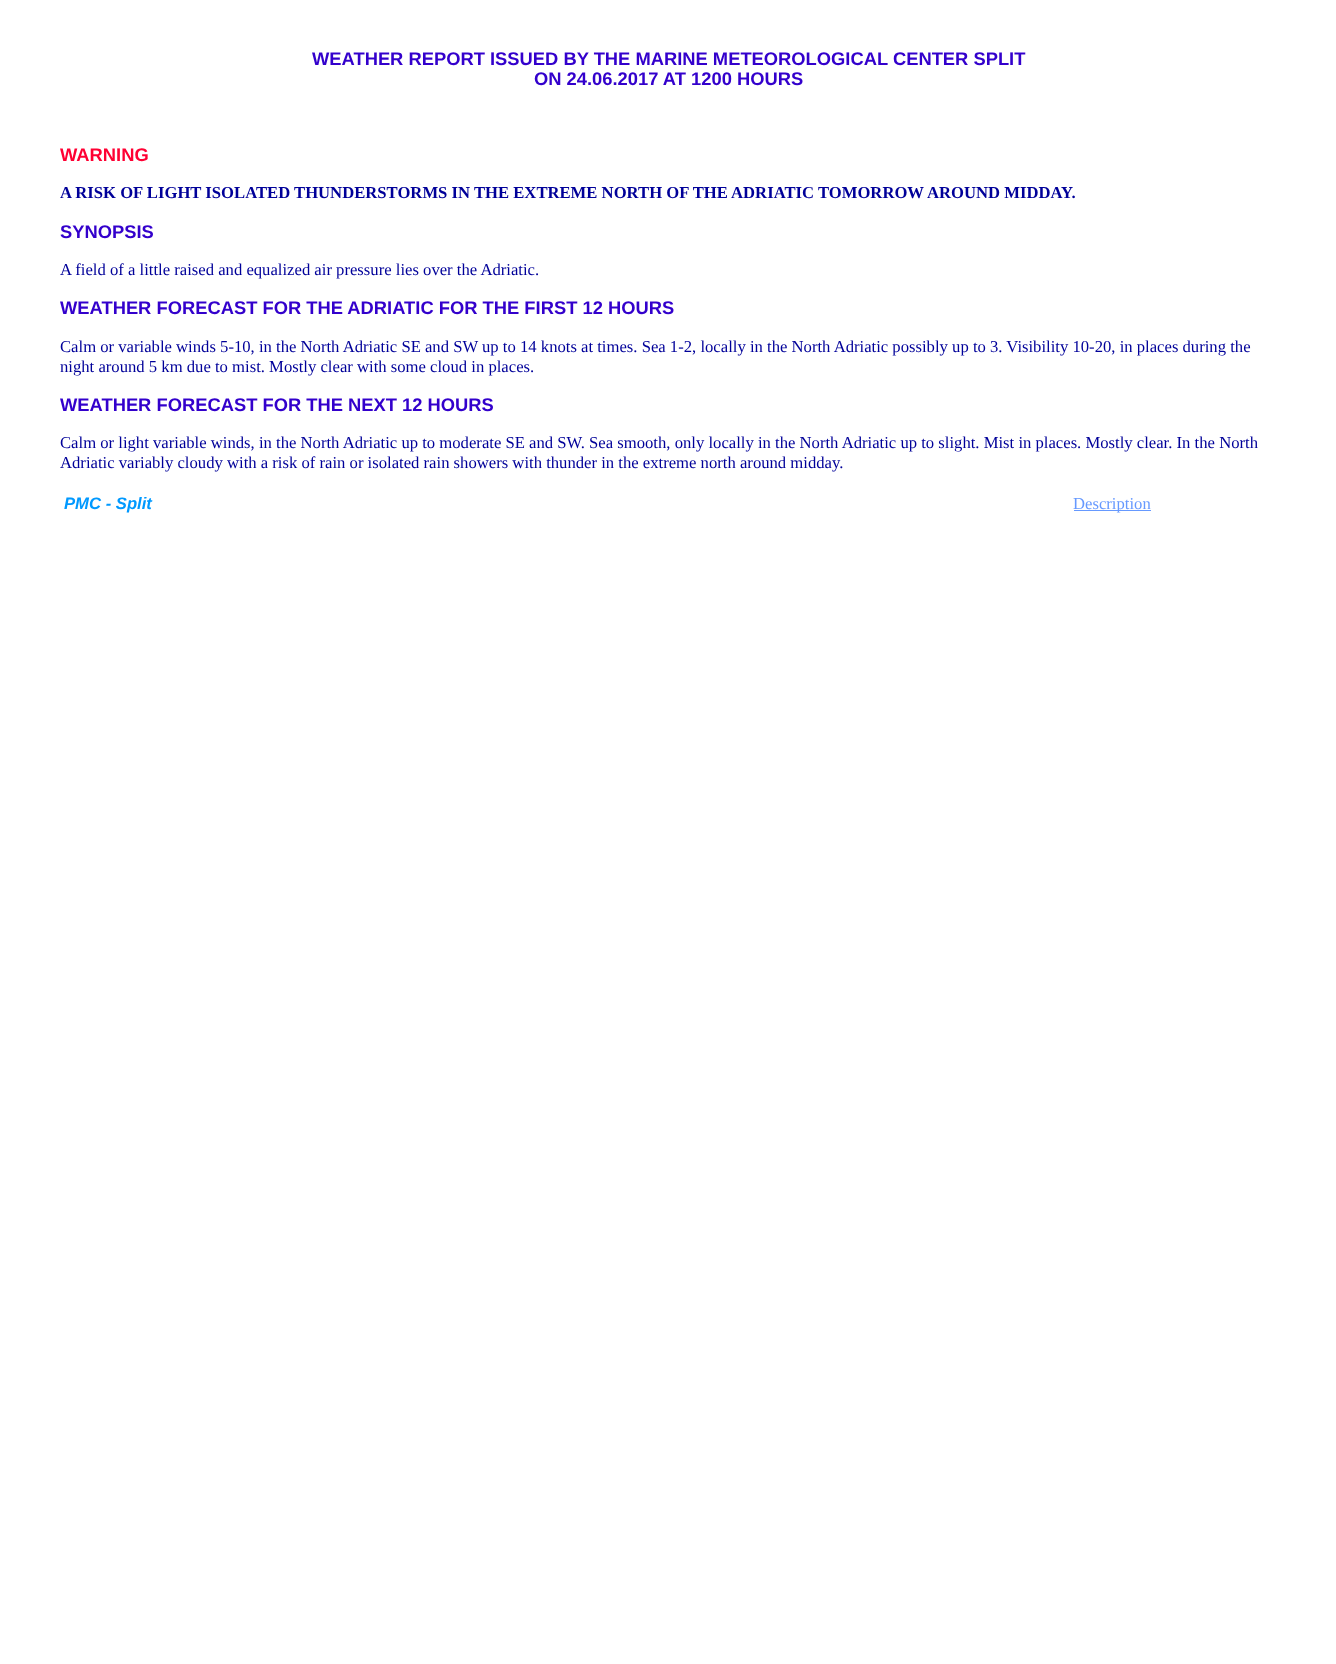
<!DOCTYPE html>
<meta charset="utf-8">
<style>body { margin: 0 } canvas { display: block }</style>
<canvas id="canvas" width="1336" height="1664"></canvas>
<script>
window.onload = function () {
	const canvas = document.getElementById("canvas");
	const ctx = canvas.getContext("2d");
	ctx.miterLimit = 4;
	ctx.fontKerning = "normal";
	function txt(s, x, y) {
		ctx.fillText(s, x, y);
	}
	function fill(x, y, w, h) {
		ctx.fillRect(x, y, w, h);
	}

	ctx.fillStyle = "#FFFFFF";
	fill(0, 0, 1336, 1664);
	ctx.fillStyle = "#6699FF";
	fill(1074, 510, 77, 1);
	ctx.font = "bold 18.35px Liberation Sans";
	ctx.fillStyle = "#3300CC";
	txt("WEATHER REPORT ISSUED BY THE MARINE METEOROLOGICAL CENTER SPLIT", 312, 65);
	txt("ON 24.06.2017 AT 1200 HOURS", 534, 85);
	ctx.fillStyle = "#FF0033";
	txt("WARNING", 60, 161);
	ctx.font = "bold 16.67px Liberation Serif";
	ctx.fillStyle = "#000099";
	txt("A RISK OF LIGHT ISOLATED THUNDERSTORMS IN THE EXTREME NORTH OF THE ADRIATIC TOMORROW AROUND MIDDAY.", 60, 198);
	ctx.font = "bold 18.35px Liberation Sans";
	ctx.fillStyle = "#3300CC";
	txt("SYNOPSIS", 60, 238);
	ctx.font = "16.67px Liberation Serif";
	ctx.fillStyle = "#000099";
	txt("A field of a little raised and equalized air pressure lies over the Adriatic.", 60, 275);
	ctx.font = "bold 18.35px Liberation Sans";
	ctx.fillStyle = "#3300CC";
	txt("WEATHER FORECAST FOR THE ADRIATIC FOR THE FIRST 12 HOURS", 60, 314);
	ctx.font = "16.67px Liberation Serif";
	ctx.fillStyle = "#000099";
	txt("Calm or variable winds 5-10, in the North Adriatic SE and SW up to 14 knots at times. Sea 1-2, locally in the North Adriatic possibly up to 3. Visibility 10-20, in places during the", 60, 352);
	txt("night around 5 km due to mist. Mostly clear with some cloud in places.", 60, 372);
	ctx.font = "bold 18.35px Liberation Sans";
	ctx.fillStyle = "#3300CC";
	txt("WEATHER FORECAST FOR THE NEXT 12 HOURS", 60, 411);
	ctx.font = "16.67px Liberation Serif";
	ctx.fillStyle = "#000099";
	txt("Calm or light variable winds, in the North Adriatic up to moderate SE and SW. Sea smooth, only locally in the North Adriatic up to slight. Mist in places. Mostly clear. In the North", 60, 448);
	txt("Adriatic variably cloudy with a risk of rain or isolated rain showers with thunder in the extreme north around midday.", 60, 468);
	ctx.font = "italic bold 16.67px Liberation Sans";
	ctx.fillStyle = "#0099FF";
	txt("PMC - Split", 64, 509);
	ctx.font = "16.67px Liberation Serif";
	ctx.fillStyle = "#6699FF";
	txt("Description", 1073, 509);
};
</script>
